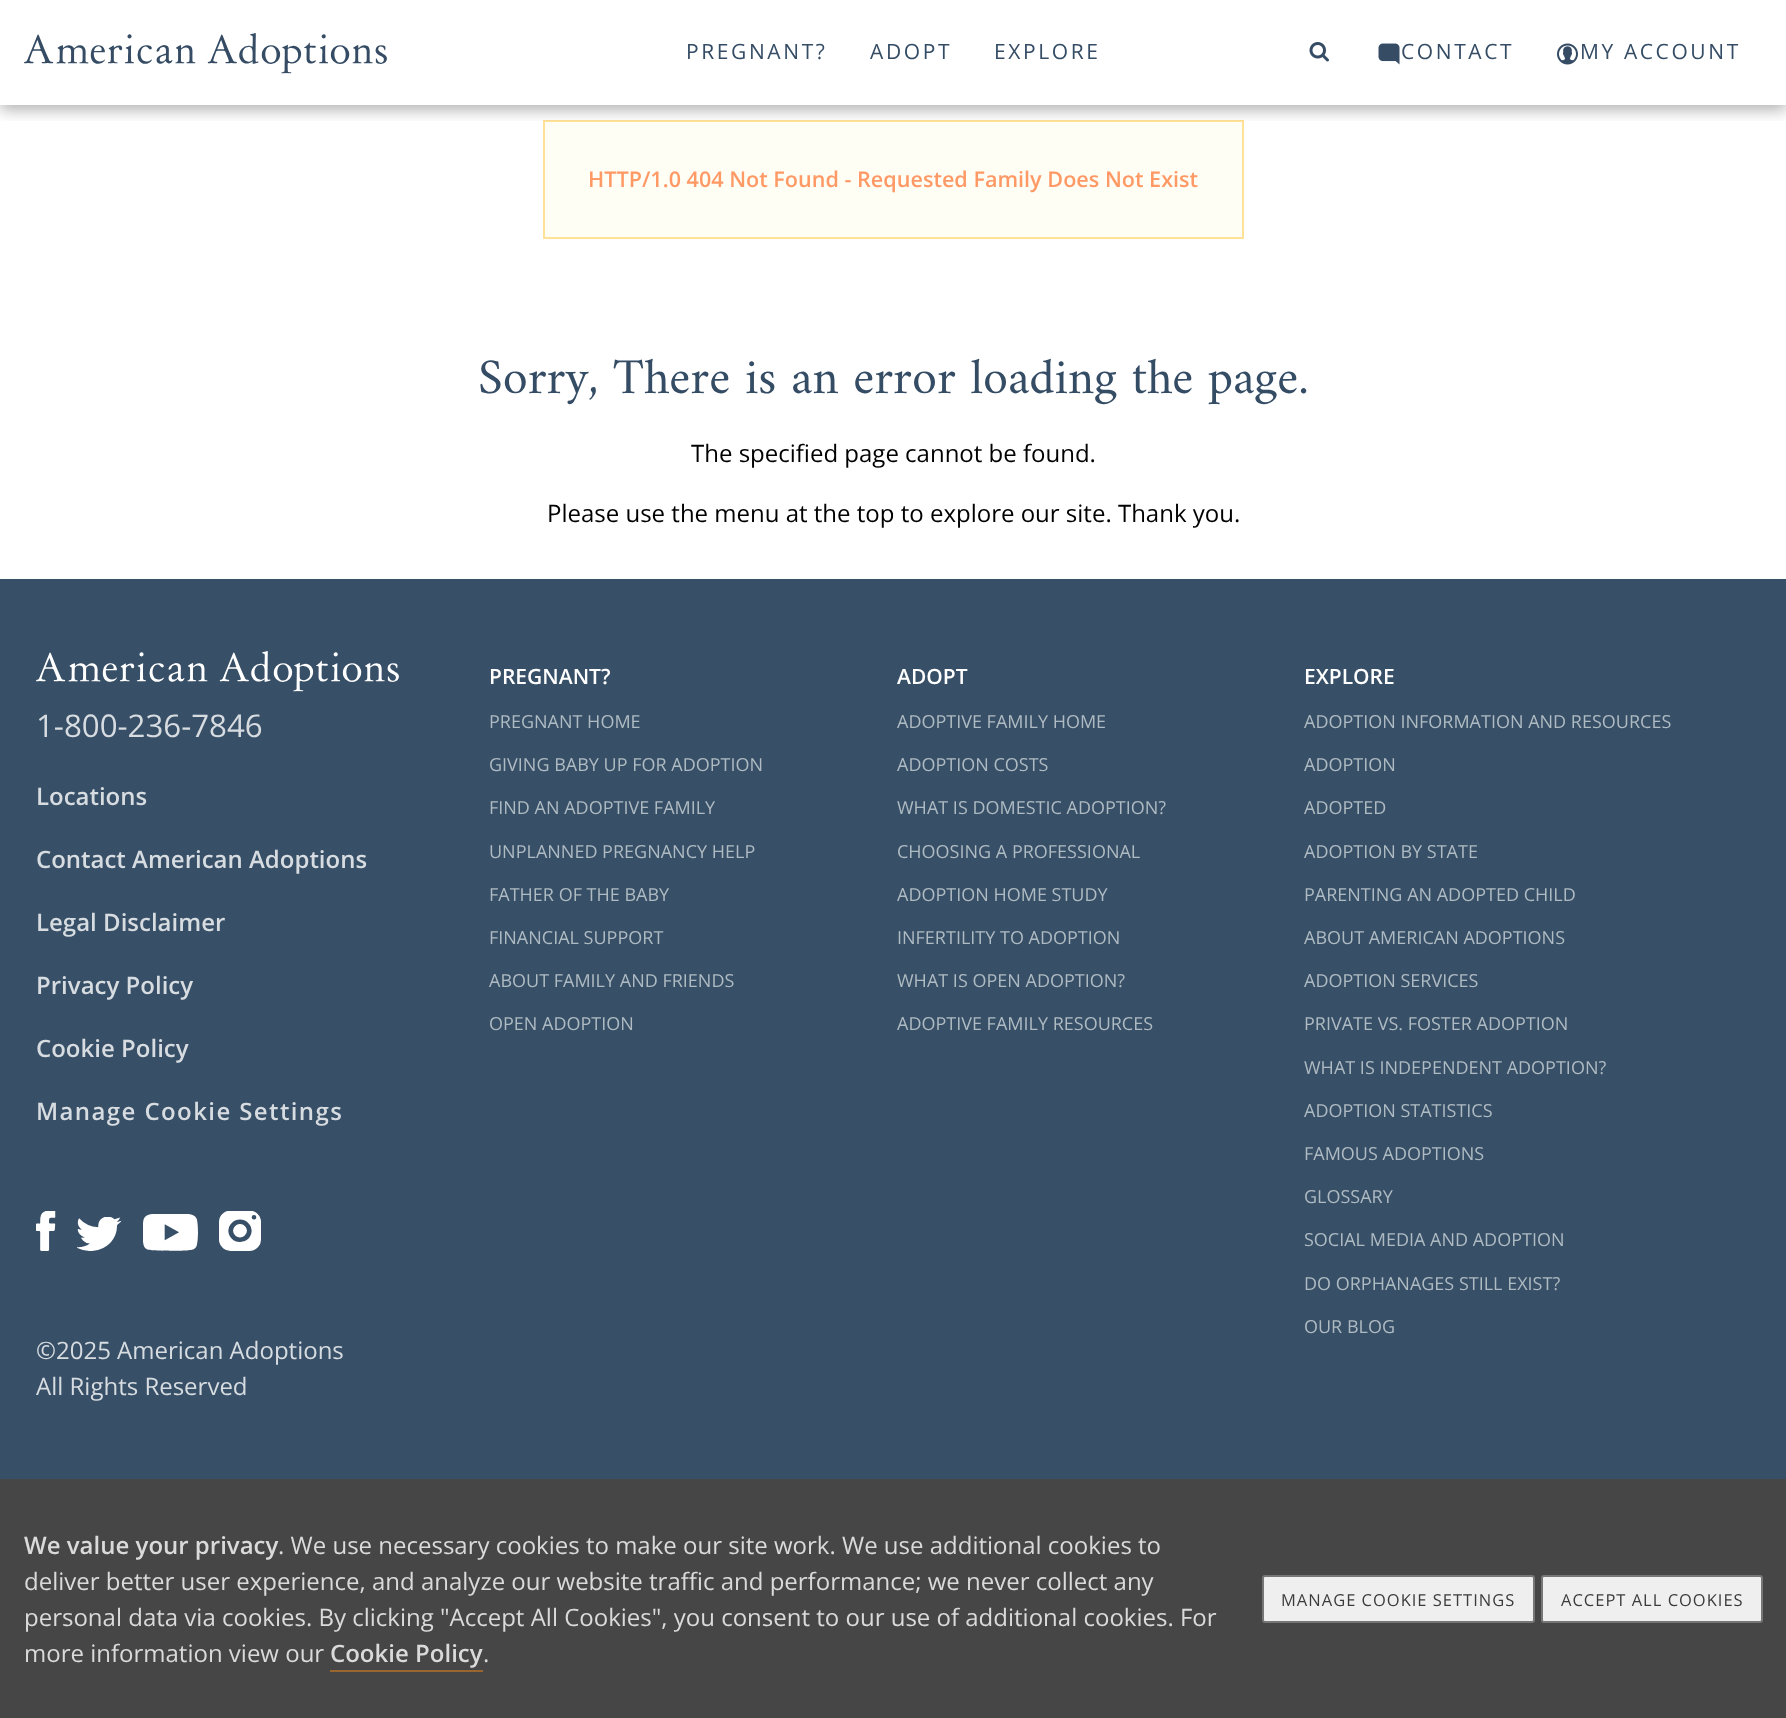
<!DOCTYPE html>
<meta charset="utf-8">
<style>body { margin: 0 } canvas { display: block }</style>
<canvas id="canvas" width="1786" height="1718"></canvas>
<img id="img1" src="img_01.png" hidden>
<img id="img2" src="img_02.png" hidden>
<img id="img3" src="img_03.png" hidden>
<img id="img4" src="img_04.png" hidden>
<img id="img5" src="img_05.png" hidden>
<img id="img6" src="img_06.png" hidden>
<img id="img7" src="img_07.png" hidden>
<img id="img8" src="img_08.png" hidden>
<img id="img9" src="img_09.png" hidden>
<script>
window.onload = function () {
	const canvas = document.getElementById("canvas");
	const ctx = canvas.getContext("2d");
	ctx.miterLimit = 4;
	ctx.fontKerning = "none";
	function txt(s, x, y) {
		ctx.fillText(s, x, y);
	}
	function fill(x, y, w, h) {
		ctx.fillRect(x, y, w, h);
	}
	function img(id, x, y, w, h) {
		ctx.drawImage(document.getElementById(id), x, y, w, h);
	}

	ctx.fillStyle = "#FFFFFF";
	fill(0, 0, 1786, 1718);
	ctx.fillStyle = "#FEFEF5";
	ctx.beginPath();
	ctx.rect(544, 121, 699, 117);
	ctx.fill();
	ctx.strokeStyle = "#FFE197";
	ctx.lineWidth = 2;
	ctx.stroke();
	ctx.save();
	ctx.beginPath();
	ctx.rect(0, 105, 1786, 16);
	ctx.clip();
	ctx.fillStyle = "rgba(0, 0, 0, 0.3)";
	ctx.filter = "blur(7.5px)";
	ctx.beginPath();
	ctx.rect(0, 5, 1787, 105);
	ctx.fill();
	ctx.filter = "none";
	ctx.restore();
	img("img1", 24, 33, 363, 41);
	img("img2", 1309, 42, 20, 20);
	img("img3", 1378, 43, 22, 22);
	img("img4", 1557, 43, 21, 22);
	ctx.fillStyle = "#374F67";
	fill(0, 579, 1786, 900);
	img("img5", 36, 651, 363, 41);
	img("img6", 36, 1211, 20, 40);
	img("img7", 77, 1217, 45, 34);
	img("img8", 143, 1214, 55, 37);
	img("img9", 219, 1211, 42, 40);
	ctx.fillStyle = "#464646";
	fill(0, 1479, 1786, 239);
	ctx.fillStyle = "#99662F";
	fill(330, 1670, 153, 2);
	ctx.fillStyle = "#EFEFEF";
	ctx.beginPath();
	ctx.roundRect(1263, 1576, 271, 46, 2);
	ctx.fill();
	ctx.strokeStyle = "#767676";
	ctx.stroke();
	ctx.beginPath();
	ctx.roundRect(1542, 1576, 220, 46, 2);
	ctx.fill();
	ctx.stroke();
	ctx.letterSpacing = "2.6px";
	ctx.font = "21px Open Sans";
	ctx.fillStyle = "#354C65";
	txt("PREGNANT?", 686, 59);
	txt("ADOPT", 870, 59);
	txt("EXPLORE", 994, 59);
	txt("CONTACT", 1401, 59);
	txt("MY ACCOUNT", 1580, 59);
	ctx.letterSpacing = "0px";
	ctx.font = "600 21.6px Open Sans";
	ctx.fillStyle = "#FF9966";
	txt("HTTP/1.0 404 Not Found - Requested Family Does Not Exist", 588, 187);
	ctx.font = "50.4px Amiri";
	ctx.fillStyle = "#354C65";
	txt("Sorry, There is an error loading the page.", 478, 393);
	ctx.font = "24px Open Sans";
	ctx.fillStyle = "#000000";
	txt("The specified page cannot be found.", 691, 462);
	txt("Please use the menu at the top to explore our site. Thank you.", 547, 522);
	ctx.font = "31.25px Open Sans";
	ctx.fillStyle = "#D7DCE1";
	txt("1-800-236-7846", 36, 737);
	ctx.font = "600 24px Open Sans";
	txt("Locations", 36, 805);
	txt("Contact American Adoptions", 36, 868);
	txt("Legal Disclaimer", 36, 931);
	txt("Privacy Policy", 36, 994);
	txt("Cookie Policy", 36, 1057);
	ctx.letterSpacing = "1.4px";
	txt("Manage Cookie Settings", 36, 1120);
	ctx.letterSpacing = "0px";
	ctx.font = "24px Open Sans";
	txt("©2025 American Adoptions", 36, 1359);
	txt("All Rights Reserved", 36, 1395);
	ctx.font = "600 21px Open Sans";
	ctx.fillStyle = "#FFFFFF";
	txt("PREGNANT?", 489, 684);
	ctx.font = "18px Open Sans";
	ctx.fillStyle = "#AFBBC2";
	txt("PREGNANT HOME", 489, 728);
	txt("GIVING BABY UP FOR ADOPTION", 489, 771);
	txt("FIND AN ADOPTIVE FAMILY", 489, 814);
	txt("UNPLANNED PREGNANCY HELP", 489, 858);
	txt("FATHER OF THE BABY", 489, 901);
	txt("FINANCIAL SUPPORT", 489, 944);
	txt("ABOUT FAMILY AND FRIENDS", 489, 987);
	txt("OPEN ADOPTION", 489, 1030);
	ctx.font = "600 21px Open Sans";
	ctx.fillStyle = "#FFFFFF";
	txt("ADOPT", 897, 684);
	ctx.font = "18px Open Sans";
	ctx.fillStyle = "#AFBBC2";
	txt("ADOPTIVE FAMILY HOME", 897, 728);
	txt("ADOPTION COSTS", 897, 771);
	txt("WHAT IS DOMESTIC ADOPTION?", 897, 814);
	txt("CHOOSING A PROFESSIONAL", 897, 858);
	txt("ADOPTION HOME STUDY", 897, 901);
	txt("INFERTILITY TO ADOPTION", 897, 944);
	txt("WHAT IS OPEN ADOPTION?", 897, 987);
	txt("ADOPTIVE FAMILY RESOURCES", 897, 1030);
	ctx.font = "600 21px Open Sans";
	ctx.fillStyle = "#FFFFFF";
	txt("EXPLORE", 1304, 684);
	ctx.font = "18px Open Sans";
	ctx.fillStyle = "#AFBBC2";
	txt("ADOPTION INFORMATION AND RESOURCES", 1304, 728);
	txt("ADOPTION", 1304, 771);
	txt("ADOPTED", 1304, 814);
	txt("ADOPTION BY STATE", 1304, 858);
	txt("PARENTING AN ADOPTED CHILD", 1304, 901);
	txt("ABOUT AMERICAN ADOPTIONS", 1304, 944);
	txt("ADOPTION SERVICES", 1304, 987);
	txt("PRIVATE VS. FOSTER ADOPTION", 1304, 1030);
	txt("WHAT IS INDEPENDENT ADOPTION?", 1304, 1074);
	txt("ADOPTION STATISTICS", 1304, 1117);
	txt("FAMOUS ADOPTIONS", 1304, 1160);
	txt("GLOSSARY", 1304, 1203);
	txt("SOCIAL MEDIA AND ADOPTION", 1304, 1246);
	txt("DO ORPHANAGES STILL EXIST?", 1304, 1290);
	txt("OUR BLOG", 1304, 1333);
	ctx.font = "600 24px Open Sans";
	ctx.fillStyle = "#DADADA";
	txt("We value your privacy", 24, 1554);
	ctx.font = "24px Open Sans";
	txt(". We use necessary cookies to make our site work. We use additional cookies to", 278, 1554);
	txt("deliver better user experience, and analyze our website traffic and performance; we never collect any", 24, 1590);
	txt("personal data via cookies. By clicking \"Accept All Cookies\", you consent to our use of additional cookies. For", 24, 1626);
	txt("more information view our", 24, 1662);
	ctx.font = "600 24px Open Sans";
	txt("Cookie Policy", 330, 1662);
	ctx.font = "24px Open Sans";
	txt(".", 483, 1662);
	ctx.letterSpacing = "1px";
	ctx.font = "16.5px Open Sans";
	ctx.fillStyle = "#3B3B3B";
	txt("MANAGE COOKIE SETTINGS", 1281, 1606);
	txt("ACCEPT ALL COOKIES", 1561, 1606);
};
</script>
